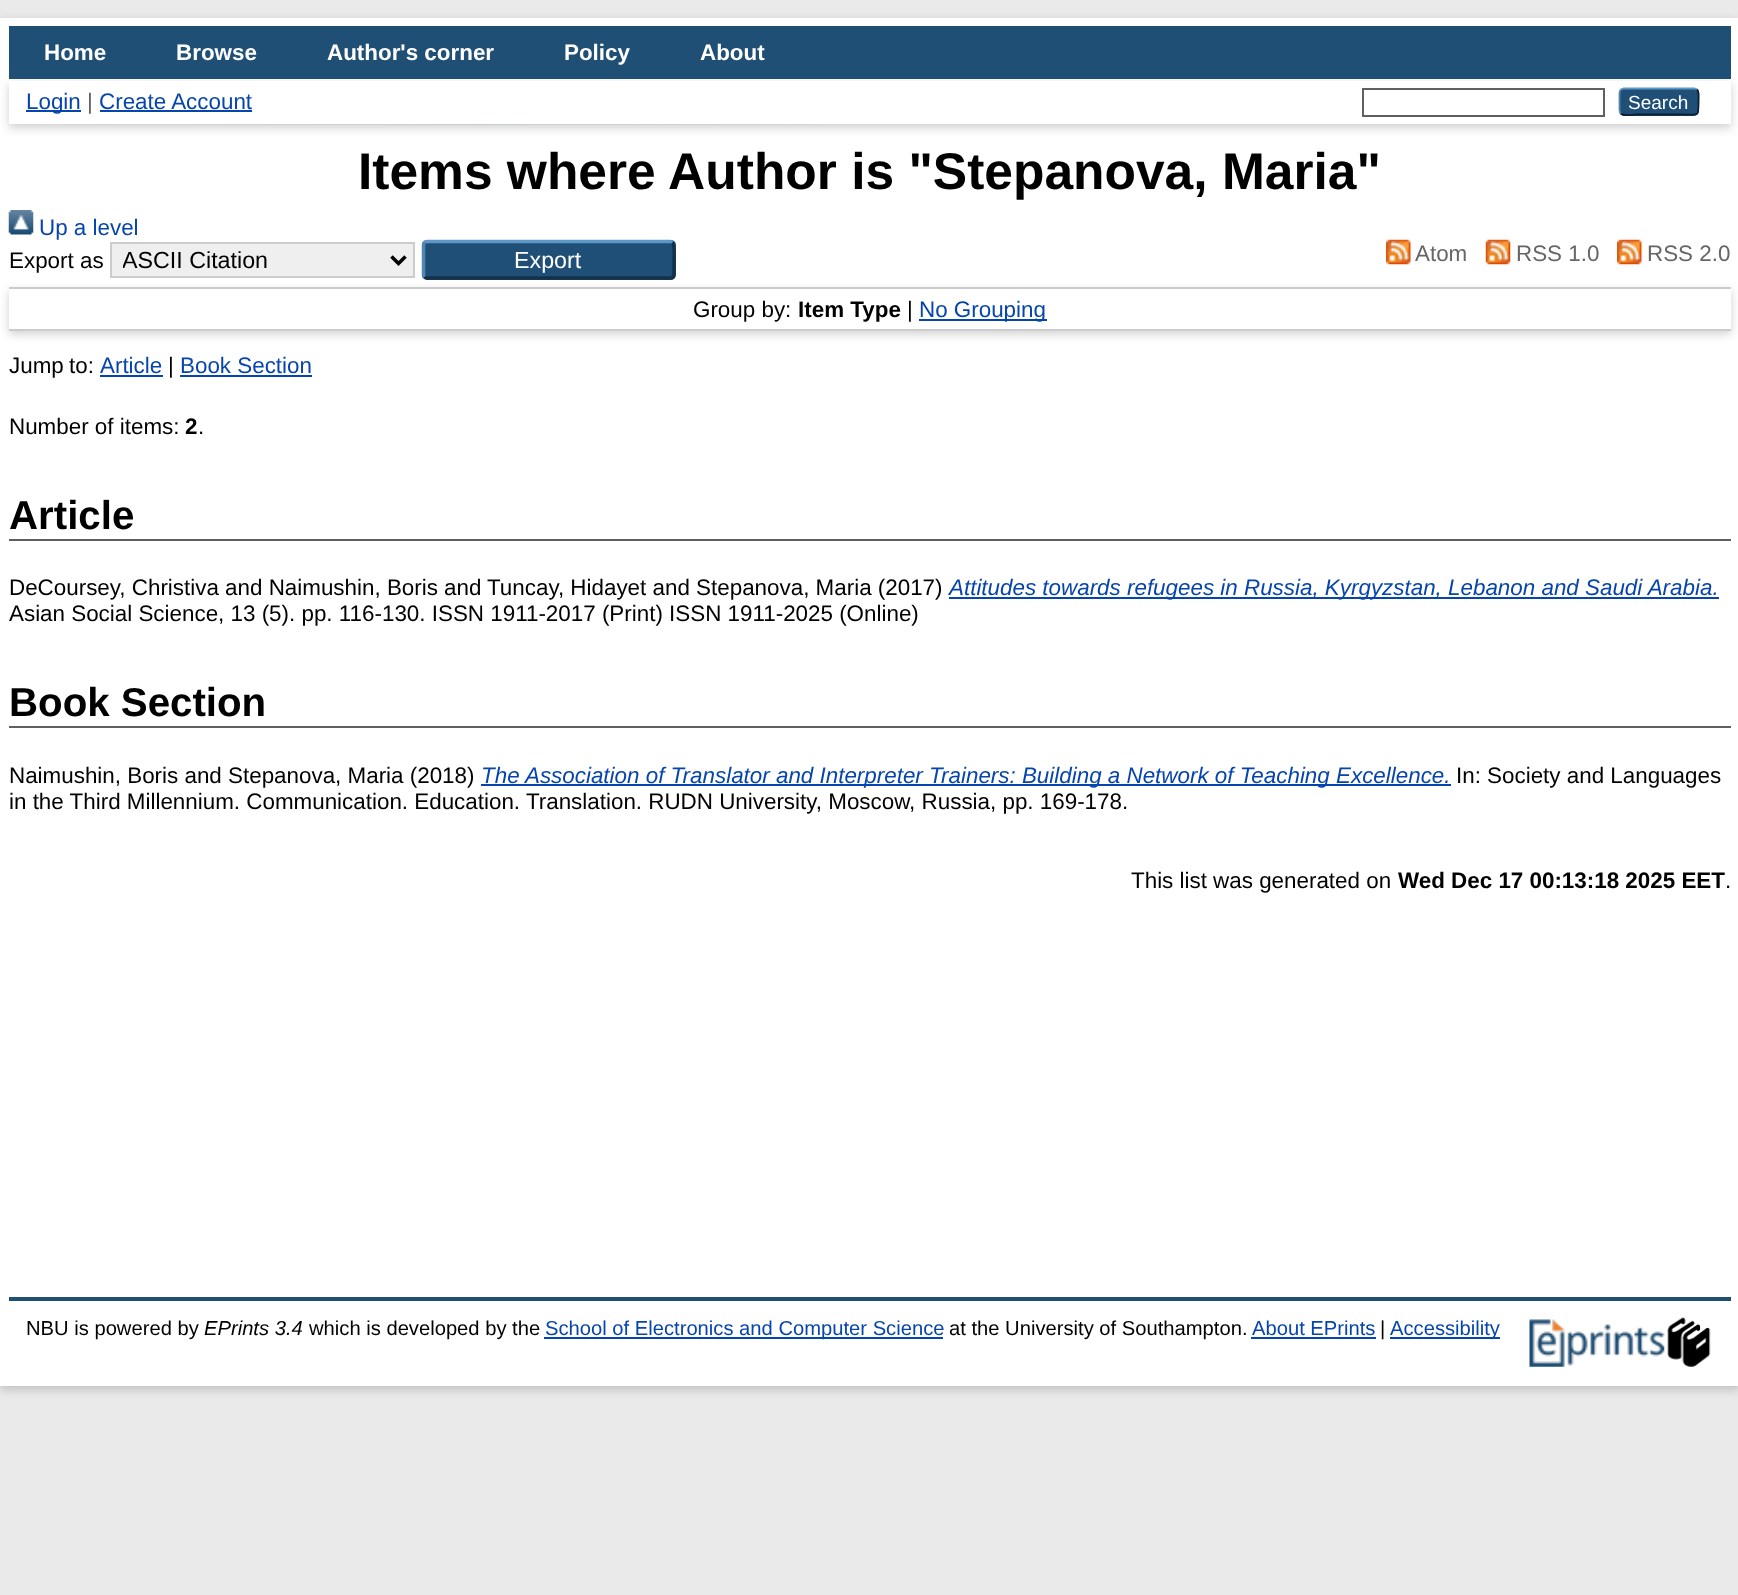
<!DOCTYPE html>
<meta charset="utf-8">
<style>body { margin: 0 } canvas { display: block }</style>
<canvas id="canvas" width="1738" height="1595"></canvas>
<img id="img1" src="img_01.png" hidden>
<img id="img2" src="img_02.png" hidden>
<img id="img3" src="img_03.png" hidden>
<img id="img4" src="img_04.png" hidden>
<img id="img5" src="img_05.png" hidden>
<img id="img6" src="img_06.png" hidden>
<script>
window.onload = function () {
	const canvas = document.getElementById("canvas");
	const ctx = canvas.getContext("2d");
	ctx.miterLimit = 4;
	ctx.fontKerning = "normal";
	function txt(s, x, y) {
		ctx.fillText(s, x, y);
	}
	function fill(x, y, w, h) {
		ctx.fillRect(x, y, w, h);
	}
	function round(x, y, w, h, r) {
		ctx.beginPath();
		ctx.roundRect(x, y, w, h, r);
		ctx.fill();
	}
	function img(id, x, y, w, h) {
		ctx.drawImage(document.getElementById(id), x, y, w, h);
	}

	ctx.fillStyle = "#EAEAEA";
	fill(0, 0, 1738, 1595);
	ctx.fillStyle = "rgba(100, 100, 100, 0.3)";
	ctx.filter = "blur(5px)";
	ctx.beginPath();
	ctx.rect(0, 21, 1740, 1369);
	ctx.fill();
	ctx.filter = "none";
	ctx.fillStyle = "#FFFFFF";
	fill(0, 18, 1738, 1368);
	img("img1", 64, 124, 753, 1);
	ctx.fillStyle = "#204F76";
	fill(9, 26, 1722, 53);
	ctx.fillStyle = "rgba(100, 100, 100, 0.3)";
	ctx.filter = "blur(5px)";
	ctx.beginPath();
	ctx.rect(9, 84, 1722, 44);
	ctx.fill();
	ctx.filter = "none";
	ctx.fillStyle = "#FFFFFF";
	fill(9, 81, 1722, 43);
	ctx.fillStyle = "#0645AD";
	fill(26, 110, 55, 2);
	fill(100, 110, 152, 2);
	ctx.strokeStyle = "#606060";
	ctx.lineWidth = 2;
	ctx.strokeRect(1363, 89, 241, 27);
	ctx.fillStyle = "#1F4F76";
	round(1619, 88, 80, 28, 5);
	ctx.beginPath();
	ctx.moveTo(1621, 89.5);
	ctx.lineTo(1623.5, 88.5);
	ctx.lineTo(1694.5, 88.5);
	ctx.lineTo(1697, 89.5);
	ctx.strokeStyle = "#5B97C7";
	ctx.lineWidth = 1.8;
	ctx.stroke();
	ctx.beginPath();
	ctx.moveTo(1697, 89.5);
	ctx.bezierCurveTo(1699.5, 92, 1698.5, 98.5, 1698.5, 101.5);
	ctx.bezierCurveTo(1698.5, 117, 1699, 114.5, 1682.5, 114.5);
	ctx.lineTo(1635.5, 114.5);
	ctx.bezierCurveTo(1635, 114.5, 1624, 116.5, 1621, 113.5);
	ctx.strokeStyle = "#0D2131";
	ctx.stroke();
	ctx.beginPath();
	ctx.moveTo(1621, 113.5);
	ctx.bezierCurveTo(1620, 112.5, 1619.5, 111.5, 1619.5, 110);
	ctx.lineTo(1619.5, 93);
	ctx.bezierCurveTo(1619.5, 91.5, 1620, 90.5, 1621, 89.5);
	ctx.strokeStyle = "#5287B3";
	ctx.stroke();
	img("img2", 8, 210, 26, 25);
	ctx.fillStyle = "rgba(100, 100, 100, 0.3)";
	ctx.filter = "blur(5px)";
	ctx.beginPath();
	ctx.rect(9, 291, 1722, 43);
	ctx.fill();
	ctx.filter = "none";
	ctx.fillStyle = "#EFEFEF";
	ctx.beginPath();
	ctx.rect(111, 243, 303, 34);
	ctx.fill();
	ctx.strokeStyle = "#CCCCCC";
	ctx.lineWidth = 2;
	ctx.stroke();
	ctx.beginPath();
	ctx.moveTo(391.5, 256.5);
	ctx.lineTo(398.5, 263.5);
	ctx.lineTo(405.5, 256.5);
	ctx.strokeStyle = "#000000";
	ctx.lineWidth = 3.5;
	ctx.stroke();
	ctx.fillStyle = "#1F4F76";
	round(422, 240, 254, 40, 5);
	ctx.beginPath();
	ctx.moveTo(424.5, 242.5);
	ctx.bezierCurveTo(425, 242, 426, 241.5, 427, 241.5);
	ctx.lineTo(670, 241.5);
	ctx.bezierCurveTo(671, 241.5, 672, 242, 672.5, 242.5);
	ctx.strokeStyle = "#5B97C7";
	ctx.stroke();
	ctx.beginPath();
	ctx.moveTo(672.5, 242.5);
	ctx.bezierCurveTo(675, 245, 674, 261, 674, 265);
	ctx.lineTo(674, 270);
	ctx.bezierCurveTo(674, 272.5, 674.5, 277, 671.5, 278);
	ctx.lineTo(427, 278);
	ctx.lineTo(424.5, 277);
	ctx.strokeStyle = "#13324A";
	ctx.stroke();
	ctx.beginPath();
	ctx.moveTo(424.5, 277);
	ctx.bezierCurveTo(424, 276.5, 423.5, 275.5, 423.5, 275);
	ctx.lineTo(423.5, 245);
	ctx.bezierCurveTo(423.5, 244, 424, 243, 424.5, 242.5);
	ctx.strokeStyle = "#5287B3";
	ctx.stroke();
	img("img3", 1386, 239, 25, 26);
	img("img4", 1485, 239, 26, 26);
	img("img3", 1617, 239, 25, 26);
	ctx.fillStyle = "#FFFFFF";
	fill(9, 289, 1722, 40);
	ctx.fillStyle = "#CCCCCC";
	fill(9, 287, 1722, 2);
	fill(9, 329, 1722, 2);
	ctx.fillStyle = "#0645AD";
	fill(919, 319, 128, 2);
	fill(100, 375, 63, 2);
	fill(180, 375, 132, 2);
	ctx.fillStyle = "#606060";
	fill(9, 539, 1722, 2);
	ctx.fillStyle = "#0645AD";
	fill(949, 597, 770, 2);
	ctx.fillStyle = "#606060";
	fill(9, 726, 1722, 2);
	ctx.fillStyle = "#0645AD";
	fill(481, 784, 970, 2);
	ctx.fillStyle = "#204F76";
	fill(9, 1297, 1722, 4);
	ctx.fillStyle = "#0645AD";
	fill(544, 1337, 399, 2);
	fill(1251, 1337, 125, 2);
	fill(1390, 1337, 110, 2);
	img("img5", 1529, 1319, 136, 48);
	img("img6", 1667, 1317, 44, 50);
	ctx.font = "bold 22.4px Liberation Sans";
	ctx.fillStyle = "#FFFFFF";
	txt("Home", 44, 60);
	txt("Browse", 176, 60);
	txt("Author's corner", 327, 60);
	txt("Policy", 564, 60);
	txt("About", 700, 60);
	ctx.font = "22.4px Liberation Sans";
	ctx.fillStyle = "#0645AD";
	txt("Login", 26, 109);
	ctx.fillStyle = "#606060";
	txt("|", 87, 109);
	ctx.fillStyle = "#0645AD";
	txt("Create Account", 99, 109);
	ctx.font = "19px Liberation Sans";
	ctx.fillStyle = "#FFFFFF";
	txt("Search", 1628, 109);
	ctx.font = "bold 51.5px Liberation Sans";
	ctx.fillStyle = "#000000";
	txt("Items where Author is \"Stepanova, Maria\"", 358, 189);
	ctx.font = "22.4px Liberation Sans";
	ctx.fillStyle = "#0645AD";
	txt("Up a level", 39, 235);
	ctx.fillStyle = "#000000";
	txt("Export as", 9, 268);
	ctx.save();
	ctx.beginPath();
	ctx.rect(123, 245, 259, 30);
	ctx.clip();
	ctx.font = "23.25px Liberation Sans";
	txt("ASCII Citation", 122, 268);
	ctx.restore();
	ctx.font = "23.25px Liberation Sans";
	ctx.fillStyle = "#FFFFFF";
	txt("Export", 514, 268);
	ctx.font = "22.4px Liberation Sans";
	ctx.fillStyle = "#666666";
	txt("Atom", 1415, 261);
	txt("RSS 1.0", 1516, 261);
	txt("RSS 2.0", 1647, 261);
	ctx.fillStyle = "#000000";
	txt("Group by:", 693, 317);
	ctx.font = "bold 22.4px Liberation Sans";
	txt("Item Type", 798, 317);
	ctx.font = "22.4px Liberation Sans";
	txt("|", 907, 317);
	ctx.fillStyle = "#0645AD";
	txt("No Grouping", 919, 317);
	ctx.wordSpacing = "-1px";
	ctx.fillStyle = "#000000";
	txt("Jump to:", 9, 373);
	ctx.wordSpacing = "0px";
	ctx.fillStyle = "#0645AD";
	txt("Article", 100, 373);
	ctx.fillStyle = "#000000";
	txt("|", 168, 373);
	ctx.fillStyle = "#0645AD";
	txt("Book Section", 180, 373);
	ctx.fillStyle = "#000000";
	txt("Number of items:", 9, 434);
	ctx.font = "bold 22.4px Liberation Sans";
	txt("2", 185, 434);
	ctx.font = "22.4px Liberation Sans";
	txt(".", 198, 434);
	ctx.font = "bold 40.25px Liberation Sans";
	txt("Article", 9, 529);
	ctx.font = "22.4px Liberation Sans";
	txt("DeCoursey, Christiva and Naimushin, Boris and", 9, 595);
	txt("Tuncay, Hidayet and Stepanova, Maria (2017)", 487, 595);
	ctx.font = "italic 22.4px Liberation Sans";
	ctx.fillStyle = "#0645AD";
	txt("Attitudes towards refugees in Russia, Kyrgyzstan, Lebanon and Saudi Arabia.", 949, 595);
	ctx.font = "22.4px Liberation Sans";
	ctx.fillStyle = "#000000";
	txt("Asian Social Science, 13 (5). pp. 116-130. ISSN 1911-2017 (Print) ISSN 1911-2025 (Online)", 9, 621);
	ctx.font = "bold 40.25px Liberation Sans";
	txt("Book Section", 9, 716);
	ctx.font = "22.4px Liberation Sans";
	txt("Naimushin, Boris and Stepanova, Maria (2018)", 9, 783);
	ctx.font = "italic 22.4px Liberation Sans";
	ctx.fillStyle = "#0645AD";
	txt("The Association of Translator and Interpreter Trainers: Building a Network of Teaching Excellence.", 481, 783);
	ctx.font = "22.4px Liberation Sans";
	ctx.fillStyle = "#000000";
	txt("In: Society and Languages", 1456, 783);
	txt("in the Third Millennium. Communication. Education. Translation. RUDN University, Moscow, Russia, pp. 169-178.", 9, 809);
	txt("This list was generated on", 1131, 888);
	ctx.font = "bold 22.4px Liberation Sans";
	txt("Wed Dec 17 00:13:18 2025 EET", 1398, 888);
	ctx.font = "22.4px Liberation Sans";
	txt(".", 1725, 888);
	ctx.font = "20.2px Liberation Sans";
	txt("NBU is powered by", 26, 1335);
	ctx.font = "italic 20.2px Liberation Sans";
	txt("EPrints 3.4", 204, 1335);
	ctx.font = "20.2px Liberation Sans";
	txt("which is developed by the", 309, 1335);
	ctx.fillStyle = "#0645AD";
	txt("School of Electronics and Computer Science", 545, 1335);
	ctx.fillStyle = "#000000";
	txt("at the University of Southampton.", 949, 1335);
	ctx.fillStyle = "#0645AD";
	txt("About EPrints", 1252, 1335);
	ctx.fillStyle = "#000000";
	txt("|", 1380, 1335);
	ctx.fillStyle = "#0645AD";
	txt("Accessibility", 1390, 1335);
};
</script>
